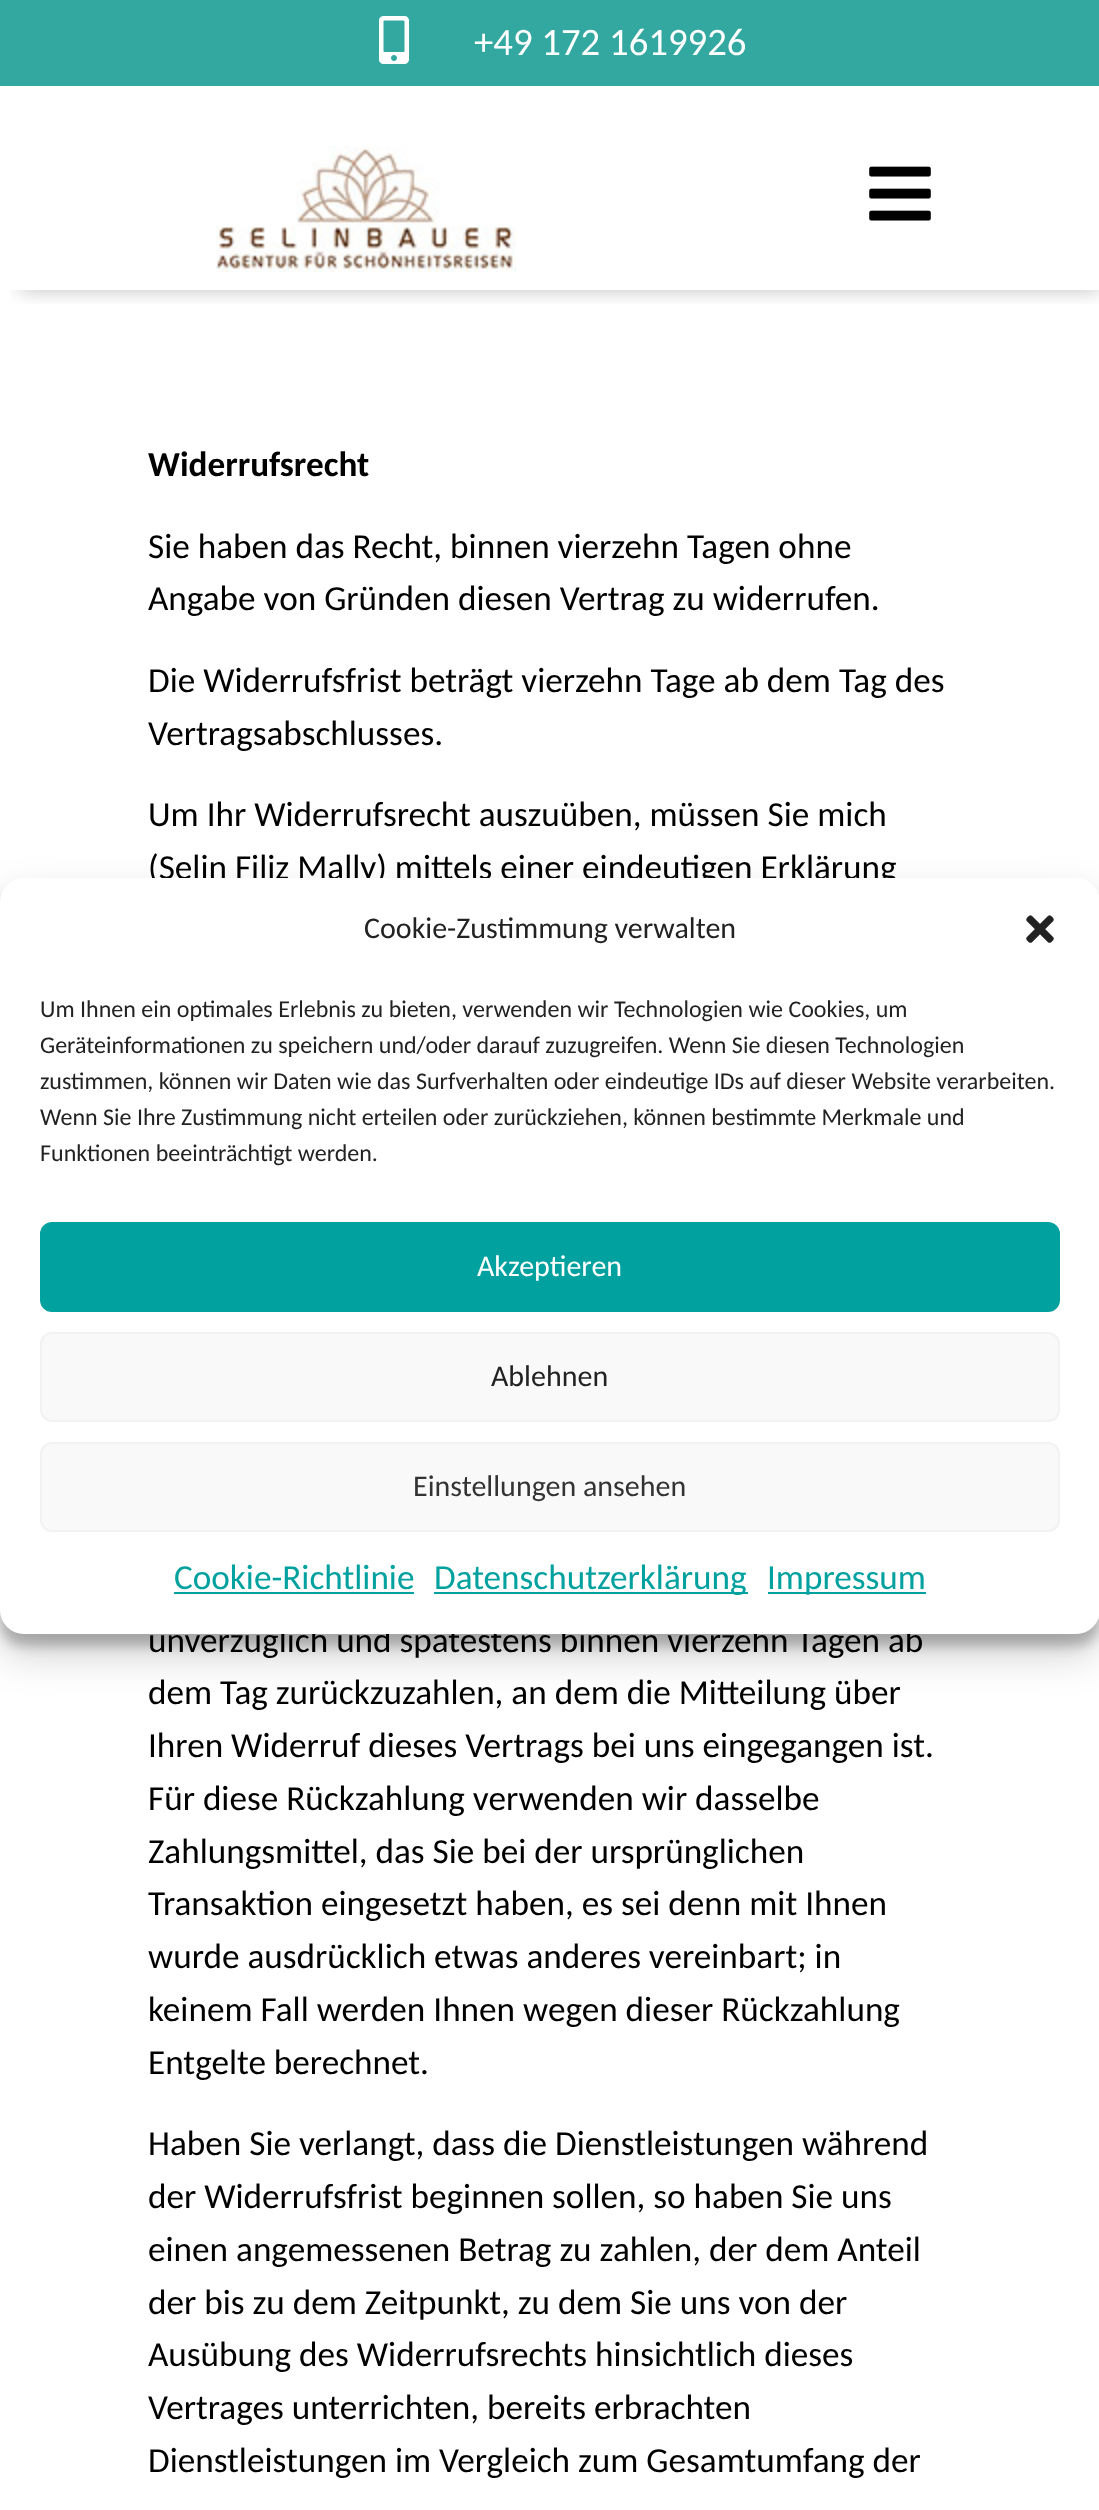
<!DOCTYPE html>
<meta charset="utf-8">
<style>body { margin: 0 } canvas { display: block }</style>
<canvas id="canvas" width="1099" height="2510"></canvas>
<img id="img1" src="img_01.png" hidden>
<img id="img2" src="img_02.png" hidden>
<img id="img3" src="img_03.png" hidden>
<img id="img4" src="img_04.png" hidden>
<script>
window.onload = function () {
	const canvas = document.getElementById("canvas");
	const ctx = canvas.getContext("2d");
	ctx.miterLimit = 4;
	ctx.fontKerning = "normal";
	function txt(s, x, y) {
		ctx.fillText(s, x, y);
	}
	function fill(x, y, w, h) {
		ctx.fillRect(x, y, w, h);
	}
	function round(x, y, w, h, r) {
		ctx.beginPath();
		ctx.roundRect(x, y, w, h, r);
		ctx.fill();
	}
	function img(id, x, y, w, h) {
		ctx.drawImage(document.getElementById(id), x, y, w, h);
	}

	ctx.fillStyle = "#FFFFFF";
	fill(0, 0, 1099, 2510);
	ctx.save();
	ctx.beginPath();
	ctx.rect(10, 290, 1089, 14);
	ctx.clip();
	ctx.fillStyle = "rgba(0, 0, 0, 0.25)";
	ctx.filter = "blur(10px)";
	ctx.beginPath();
	ctx.rect(20, 20, 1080, 270);
	ctx.fill();
	ctx.filter = "none";
	ctx.restore();
	ctx.fillStyle = "#32A8A0";
	fill(0, 0, 1099, 86);
	img("img1", 379, 16, 30, 48);
	img("img2", 215, 146, 301, 126);
	img("img3", 869, 166, 62, 55);
	ctx.fillStyle = "rgba(0, 0, 0, 0.23)";
	ctx.filter = "blur(6px)";
	ctx.beginPath();
	ctx.roundRect(0, 890, 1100, 756, 24);
	ctx.fill();
	ctx.filter = "none";
	ctx.fillStyle = "rgba(0, 0, 0, 0.19)";
	ctx.filter = "blur(20px)";
	ctx.beginPath();
	ctx.roundRect(0, 898, 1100, 756, 24);
	ctx.fill();
	ctx.filter = "none";
	ctx.font = "38.75px Carlito";
	ctx.fillStyle = "#FFFFFF";
	txt("+49 172 1619926", 474, 55);
	ctx.font = "bold 35.2px Carlito";
	ctx.fillStyle = "#000000";
	txt("Widerrufsrecht", 148, 476);
	ctx.font = "35.2px Carlito";
	txt("Sie haben das Recht, binnen vierzehn Tagen ohne", 148, 558);
	txt("Angabe von Gründen diesen Vertrag zu widerrufen.", 148, 610);
	txt("Die Widerrufsfrist beträgt vierzehn Tage ab dem Tag des", 148, 692);
	txt("Vertragsabschlusses.", 148, 745);
	txt("Um Ihr Widerrufsrecht auszuüben, müssen Sie mich", 148, 826);
	txt("(Selin Filiz Mally) mittels einer eindeutigen Erklärung", 148, 879);
	txt("unverzüglich und spätestens binnen vierzehn Tagen ab", 148, 1652);
	txt("dem Tag zurückzuzahlen, an dem die Mitteilung über", 148, 1704);
	txt("Ihren Widerruf dieses Vertrags bei uns eingegangen ist.", 148, 1757);
	txt("Für diese Rückzahlung verwenden wir dasselbe", 148, 1810);
	txt("Zahlungsmittel, das Sie bei der ursprünglichen", 148, 1863);
	txt("Transaktion eingesetzt haben, es sei denn mit Ihnen", 148, 1915);
	txt("wurde ausdrücklich etwas anderes vereinbart; in", 148, 1968);
	txt("keinem Fall werden Ihnen wegen dieser Rückzahlung", 148, 2021);
	txt("Entgelte berechnet.", 148, 2074);
	txt("Haben Sie verlangt, dass die Dienstleistungen während", 148, 2155);
	txt("der Widerrufsfrist beginnen sollen, so haben Sie uns", 148, 2208);
	txt("einen angemessenen Betrag zu zahlen, der dem Anteil", 148, 2261);
	txt("der bis zu dem Zeitpunkt, zu dem Sie uns von der", 148, 2314);
	txt("Ausübung des Widerrufsrechts hinsichtlich dieses", 148, 2366);
	txt("Vertrages unterrichten, bereits erbrachten", 148, 2419);
	txt("Dienstleistungen im Vergleich zum Gesamtumfang der", 148, 2472);
	ctx.fillStyle = "#FFFFFF";
	round(0, 878, 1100, 756, 24);
	ctx.font = "30px Carlito";
	ctx.fillStyle = "#222222";
	txt("Cookie-Zustimmung verwalten", 364, 938);
	img("img4", 1026, 915, 28, 28);
	ctx.font = "24px Carlito";
	txt("Um Ihnen ein optimales Erlebnis zu bieten, verwenden wir Technologien wie Cookies, um", 40, 1017);
	txt("Geräteinformationen zu speichern und/oder darauf zuzugreifen. Wenn Sie diesen Technologien", 40, 1053);
	txt("zustimmen, können wir Daten wie das Surfverhalten oder eindeutige IDs auf dieser Website verarbeiten.", 40, 1089);
	txt("Wenn Sie Ihre Zustimmung nicht erteilen oder zurückziehen, können bestimmte Merkmale und", 40, 1125);
	txt("Funktionen beeinträchtigt werden.", 40, 1161);
	ctx.fillStyle = "#00A19F";
	ctx.beginPath();
	ctx.roundRect(41, 1223, 1018, 88, 11);
	ctx.fill();
	ctx.strokeStyle = "#00A19F";
	ctx.lineWidth = 2;
	ctx.stroke();
	ctx.font = "30px Carlito";
	ctx.fillStyle = "#FFFFFF";
	txt("Akzeptieren", 477, 1276);
	ctx.fillStyle = "#F9F9F9";
	ctx.beginPath();
	ctx.roundRect(41, 1333, 1018, 88, 11);
	ctx.fill();
	ctx.strokeStyle = "#F2F2F2";
	ctx.stroke();
	ctx.fillStyle = "#222222";
	txt("Ablehnen", 491, 1386);
	ctx.fillStyle = "#F9F9F9";
	ctx.beginPath();
	ctx.roundRect(41, 1443, 1018, 88, 11);
	ctx.fill();
	ctx.stroke();
	ctx.fillStyle = "#333333";
	txt("Einstellungen ansehen", 413, 1496);
	ctx.font = "35.2px Carlito";
	ctx.fillStyle = "#00A19F";
	txt("Cookie-Richtlinie", 174, 1589);
	fill(174, 1592, 240, 2);
	fill(434, 1592, 314, 2);
	txt("Datenschutzerklärung", 434, 1589);
	fill(768, 1592, 158, 2);
	txt("Impressum", 767, 1589);
};
</script>
